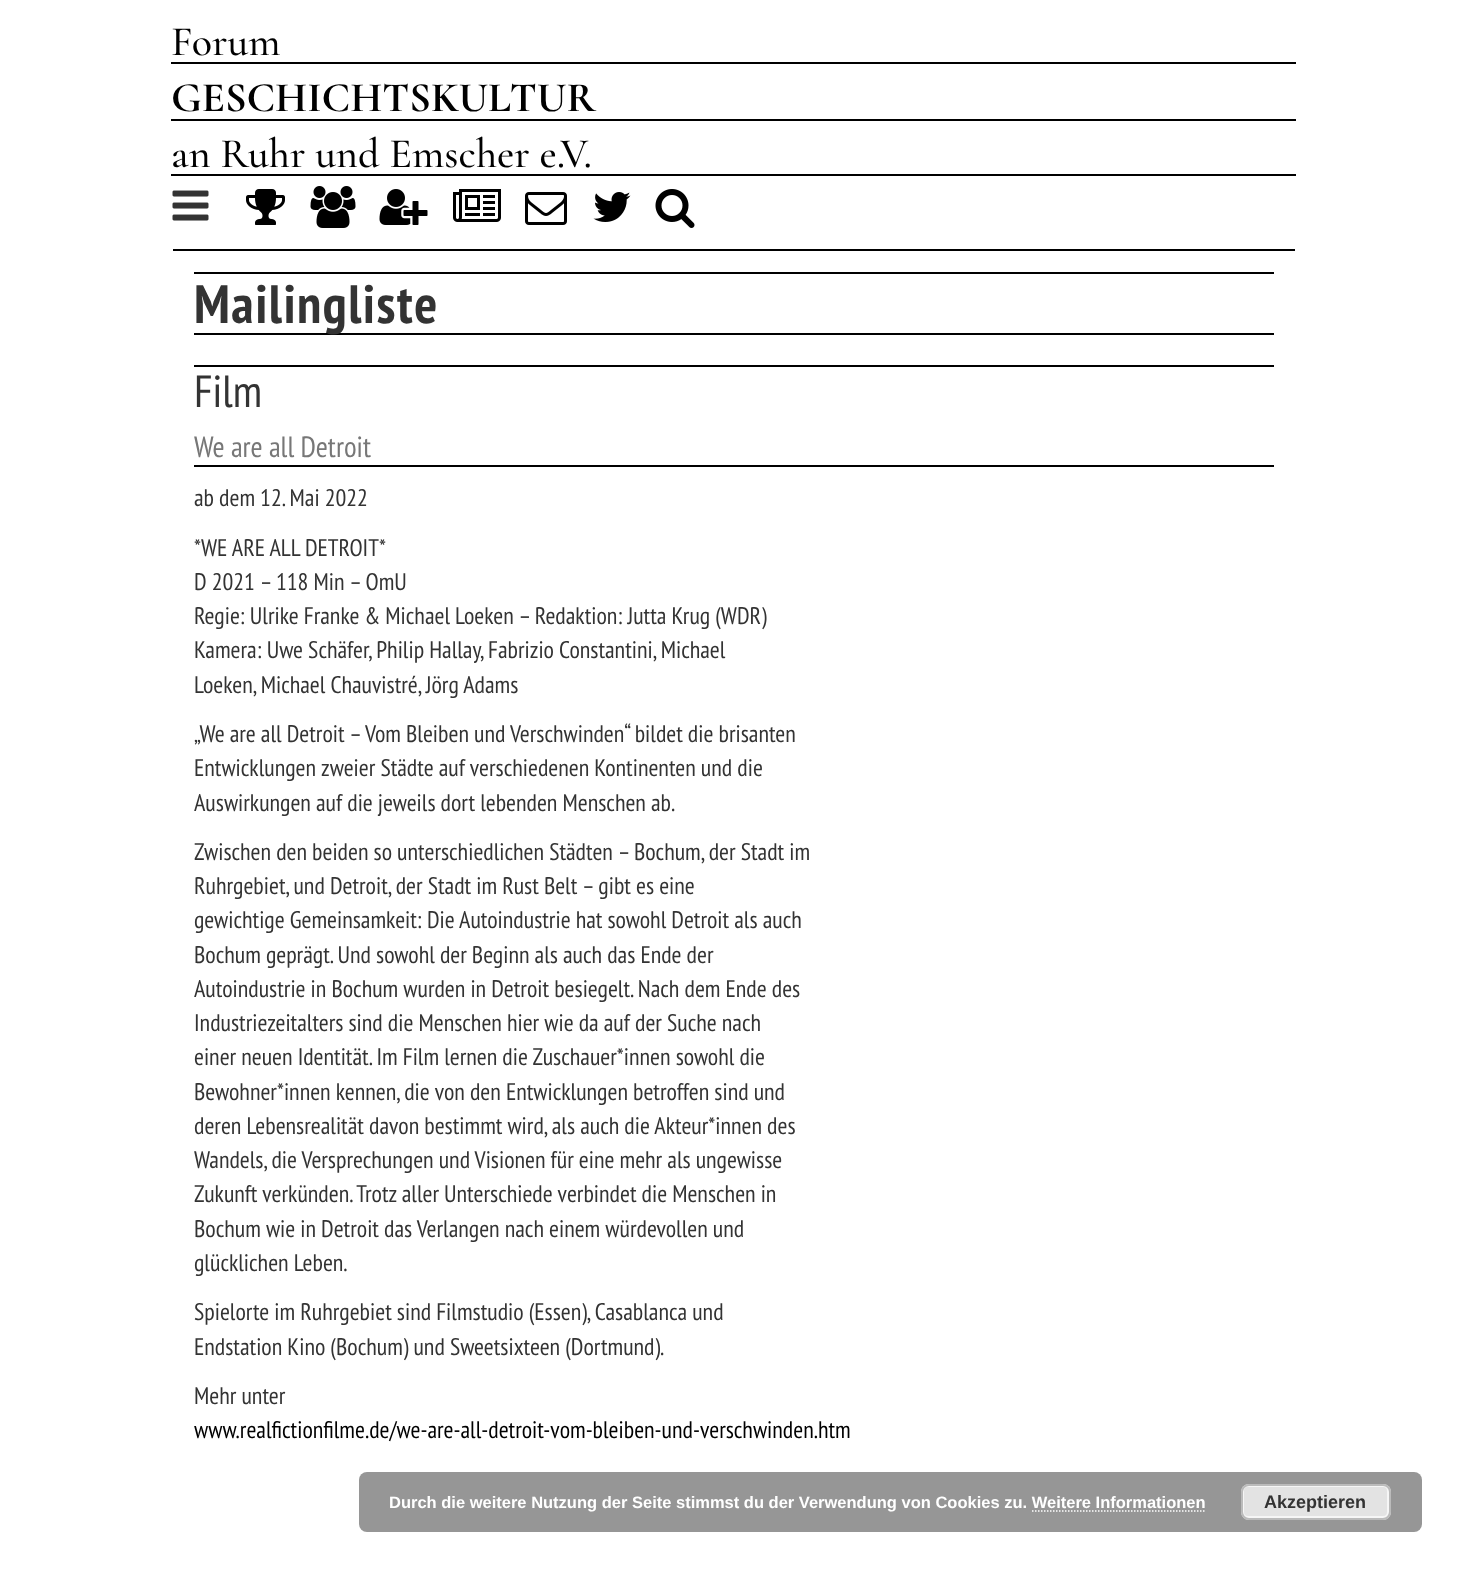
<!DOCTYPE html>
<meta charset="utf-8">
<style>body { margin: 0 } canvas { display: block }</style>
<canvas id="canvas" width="1467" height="1576"></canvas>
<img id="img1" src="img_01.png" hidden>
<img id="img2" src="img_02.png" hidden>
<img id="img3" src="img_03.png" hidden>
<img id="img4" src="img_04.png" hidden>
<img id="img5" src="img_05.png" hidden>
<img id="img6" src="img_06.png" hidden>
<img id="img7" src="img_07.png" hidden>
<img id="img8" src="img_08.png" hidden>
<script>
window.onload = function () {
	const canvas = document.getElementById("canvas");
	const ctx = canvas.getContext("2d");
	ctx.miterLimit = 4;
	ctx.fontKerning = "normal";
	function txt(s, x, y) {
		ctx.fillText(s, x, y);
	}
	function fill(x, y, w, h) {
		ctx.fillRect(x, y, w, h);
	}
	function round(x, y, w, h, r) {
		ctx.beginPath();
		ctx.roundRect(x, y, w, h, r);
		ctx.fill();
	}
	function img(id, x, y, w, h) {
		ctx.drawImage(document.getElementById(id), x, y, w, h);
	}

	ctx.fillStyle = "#FFFFFF";
	fill(0, 0, 1467, 1576);
	ctx.fillStyle = "#000000";
	fill(171, 62, 1125, 2);
	fill(171, 119, 1125, 2);
	fill(171, 174, 1125, 2);
	fill(173, 249, 1122, 2);
	img("img1", 172, 190, 37, 31);
	img("img2", 246, 189, 39, 36);
	img("img3", 310, 186, 46, 42);
	img("img4", 379, 189, 49, 36);
	img("img5", 453, 189, 48, 33);
	img("img6", 525, 192, 42, 33);
	img("img7", 593, 192, 38, 30);
	img("img8", 655, 189, 40, 39);
	fill(194, 272, 1080, 2);
	fill(194, 333, 1080, 2);
	fill(194, 365, 1080, 2);
	fill(194, 465, 1080, 2);
	ctx.fillStyle = "#969696";
	round(359, 1472, 1063, 60, 8);
	ctx.fillStyle = "#E3E3E3";
	round(1241, 1484, 150, 36, 8);
	ctx.beginPath();
	ctx.roundRect(1243, 1486, 145, 31, 5);
	ctx.strokeStyle = "#F6F6F6";
	ctx.lineWidth = 2;
	ctx.stroke();
	ctx.beginPath();
	ctx.roundRect(1242, 1485, 148, 34, 7);
	ctx.strokeStyle = "#BBBBBB";
	ctx.stroke();
	ctx.beginPath();
	ctx.moveTo(1032, 1511);
	ctx.lineTo(1206, 1511);
	ctx.strokeStyle = "#FFFFFF";
	ctx.lineWidth = 1.5;
	ctx.setLineDash([1.5, 1.5]);
	ctx.stroke();
	ctx.font = "500 42px Cormorant Garamond";
	ctx.fillStyle = "#000000";
	txt("Forum", 171, 55);
	ctx.font = "bold 42px Cormorant Garamond";
	txt("GESCHICHTSKULTUR", 171, 111);
	ctx.font = "500 42px Cormorant Garamond";
	txt("an Ruhr und Emscher e.V.", 171, 167);
	ctx.letterSpacing = "1.5px";
	ctx.font = "bold 54px PT Sans Narrow";
	ctx.fillStyle = "#333333";
	txt("Mailingliste", 194, 323);
	ctx.letterSpacing = "0px";
	ctx.font = "45px PT Sans Narrow";
	txt("Film", 194, 407);
	ctx.font = "29.25px PT Sans Narrow";
	ctx.fillStyle = "#777777";
	txt("We are all Detroit", 194, 457);
	ctx.font = "24px PT Sans Narrow";
	ctx.fillStyle = "#333333";
	txt("ab dem 12. Mai 2022", 194, 506);
	txt("*WE ARE ALL DETROIT*", 194, 556);
	txt("D 2021 – 118 Min – OmU", 194, 590);
	txt("Regie: Ulrike Franke & Michael Loeken – Redaktion: Jutta Krug (WDR)", 194, 624);
	txt("Kamera: Uwe Schäfer, Philip Hallay, Fabrizio Constantini, Michael", 194, 658);
	txt("Loeken, Michael Chauvistré, Jörg Adams", 194, 693);
	txt("„We are all Detroit – Vom Bleiben und Verschwinden“ bildet die brisanten", 194, 742);
	txt("Entwicklungen zweier Städte auf verschiedenen Kontinenten und die", 194, 776);
	txt("Auswirkungen auf die jeweils dort lebenden Menschen ab.", 194, 811);
	txt("Zwischen den beiden so unterschiedlichen Städten – Bochum, der Stadt im", 194, 860);
	txt("Ruhrgebiet, und Detroit, der Stadt im Rust Belt – gibt es eine", 194, 894);
	txt("gewichtige Gemeinsamkeit: Die Autoindustrie hat sowohl Detroit als auch", 194, 928);
	txt("Bochum geprägt. Und sowohl der Beginn als auch das Ende der", 194, 963);
	txt("Autoindustrie in Bochum wurden in Detroit besiegelt. Nach dem Ende des", 194, 997);
	txt("Industriezeitalters sind die Menschen hier wie da auf der Suche nach", 194, 1031);
	txt("einer neuen Identität. Im Film lernen die Zuschauer*innen sowohl die", 194, 1065);
	txt("Bewohner*innen kennen, die von den Entwicklungen betroffen sind und", 194, 1100);
	txt("deren Lebensrealität davon bestimmt wird, als auch die Akteur*innen des", 194, 1134);
	txt("Wandels, die Versprechungen und Visionen für eine mehr als ungewisse", 194, 1168);
	txt("Zukunft verkünden. Trotz aller Unterschiede verbindet die Menschen in", 194, 1202);
	txt("Bochum wie in Detroit das Verlangen nach einem würdevollen und", 194, 1237);
	txt("glücklichen Leben.", 194, 1271);
	txt("Spielorte im Ruhrgebiet sind Filmstudio (Essen), Casablanca und", 194, 1320);
	txt("Endstation Kino (Bochum) und Sweetsixteen (Dortmund).", 194, 1355);
	txt("Mehr unter", 194, 1404);
	ctx.fillStyle = "#000000";
	txt("www.realfictionfilme.de/we-are-all-detroit-vom-bleiben-und-verschwinden.htm", 194, 1438);
	ctx.font = "bold 16.5px Liberation Sans";
	ctx.fillStyle = "#FFFFFF";
	txt("Durch die weitere Nutzung der Seite stimmst du der Verwendung von Cookies zu. Weitere Informationen", 389, 1508);
	ctx.font = "bold 18px Liberation Sans";
	ctx.fillStyle = "#333333";
	txt("Akzeptieren", 1264, 1508);
};
</script>
